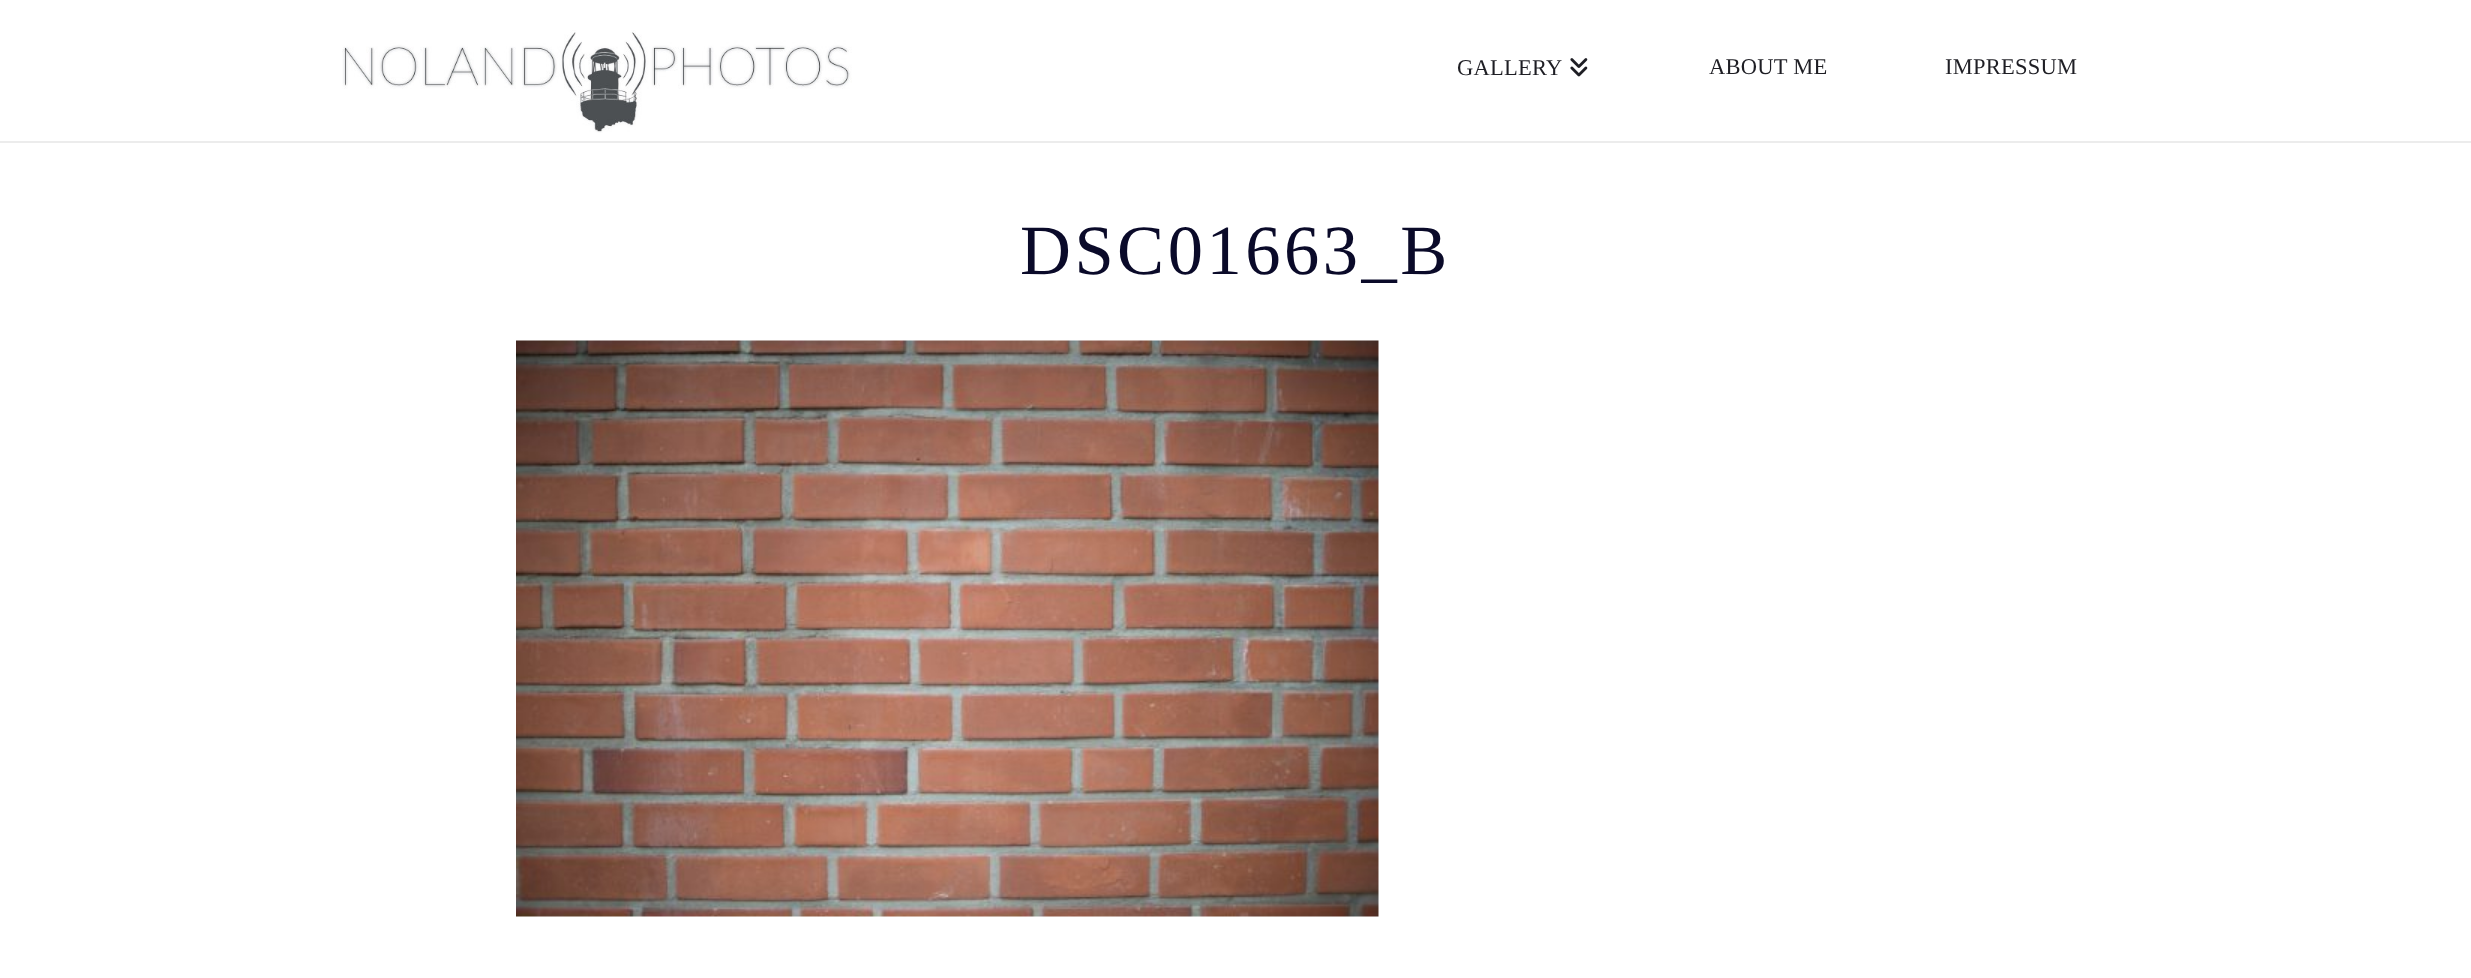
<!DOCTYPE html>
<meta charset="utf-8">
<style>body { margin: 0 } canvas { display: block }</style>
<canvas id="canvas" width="2471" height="978"></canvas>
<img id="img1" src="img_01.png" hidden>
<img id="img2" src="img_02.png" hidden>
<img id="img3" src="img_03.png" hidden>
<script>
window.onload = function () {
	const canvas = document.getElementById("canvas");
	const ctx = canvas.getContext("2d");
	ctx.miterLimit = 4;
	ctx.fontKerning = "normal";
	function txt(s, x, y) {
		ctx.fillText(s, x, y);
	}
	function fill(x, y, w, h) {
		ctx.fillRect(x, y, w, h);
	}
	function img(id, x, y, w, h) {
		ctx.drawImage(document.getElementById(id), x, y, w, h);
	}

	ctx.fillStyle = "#FFFFFF";
	fill(0, 0, 2471, 978);
	ctx.fillStyle = "#ECECEC";
	fill(0, 141, 2471, 2);
	img("img1", 342, 30, 510, 103);
	img("img2", 1570, 58, 18, 19);
	img("img3", 516, 340, 863, 577);
	ctx.letterSpacing = "0.25px";
	ctx.font = "22.5px Liberation Serif";
	ctx.fillStyle = "#1E1E24";
	txt("GALLERY", 1457, 75);
	txt("ABOUT ME", 1709, 74);
	txt("IMPRESSUM", 1945, 74);
	ctx.letterSpacing = "3.5px";
	ctx.font = "70.5px Liberation Serif";
	ctx.fillStyle = "#0A0A29";
	txt("DSC01663_B", 1020, 274);
};
</script>
